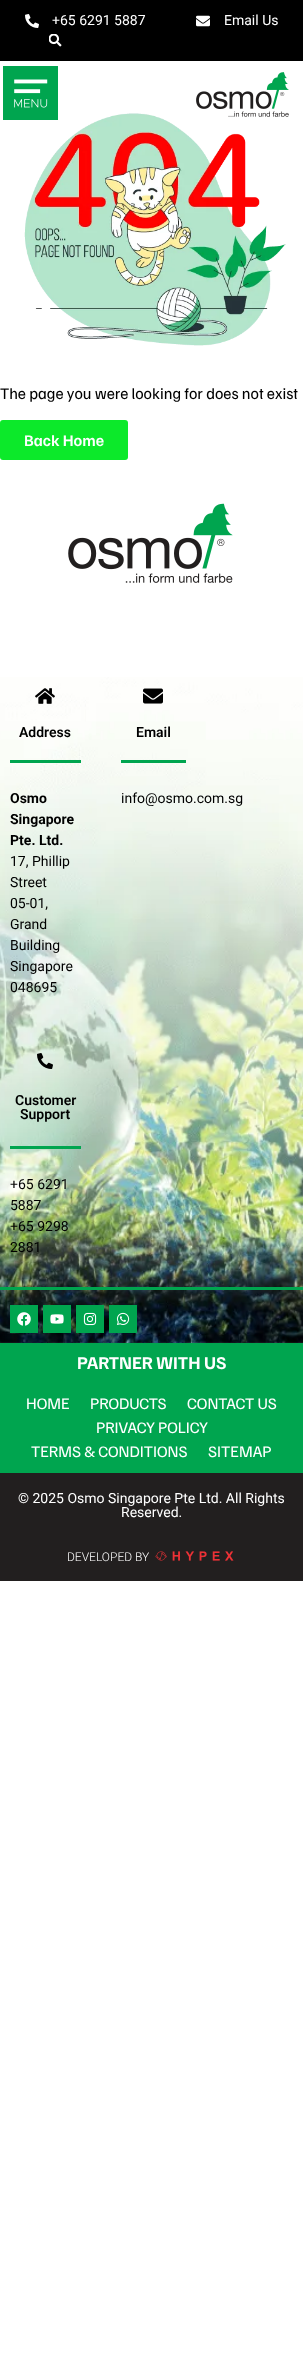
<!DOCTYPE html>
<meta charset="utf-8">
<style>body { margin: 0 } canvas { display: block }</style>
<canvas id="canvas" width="303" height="2370"></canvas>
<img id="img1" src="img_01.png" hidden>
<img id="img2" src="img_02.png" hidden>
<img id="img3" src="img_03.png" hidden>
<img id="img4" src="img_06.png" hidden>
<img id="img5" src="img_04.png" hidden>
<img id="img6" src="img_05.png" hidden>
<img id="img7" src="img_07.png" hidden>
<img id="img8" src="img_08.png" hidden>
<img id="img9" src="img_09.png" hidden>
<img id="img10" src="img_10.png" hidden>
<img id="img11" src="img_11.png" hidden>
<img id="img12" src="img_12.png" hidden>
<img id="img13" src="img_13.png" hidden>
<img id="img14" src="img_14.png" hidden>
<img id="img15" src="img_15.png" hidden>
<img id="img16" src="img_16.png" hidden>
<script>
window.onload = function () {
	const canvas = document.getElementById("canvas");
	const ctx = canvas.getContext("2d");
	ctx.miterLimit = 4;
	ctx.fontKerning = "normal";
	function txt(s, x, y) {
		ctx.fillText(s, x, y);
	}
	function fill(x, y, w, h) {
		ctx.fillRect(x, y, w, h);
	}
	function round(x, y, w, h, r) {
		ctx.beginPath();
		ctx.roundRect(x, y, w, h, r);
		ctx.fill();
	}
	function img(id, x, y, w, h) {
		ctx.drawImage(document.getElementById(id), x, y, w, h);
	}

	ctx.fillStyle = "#FFFFFF";
	fill(0, 0, 303, 2370);
	ctx.fillStyle = "#000000";
	fill(0, 0, 303, 61);
	img("img1", 25, 14, 14, 14);
	img("img2", 196, 15, 14, 12);
	img("img3", 49, 34, 13, 13);
	img("img4", 24, 113, 262, 233);
	img("img5", 3, 66, 55, 54);
	img("img6", 196, 72, 93, 45);
	ctx.fillStyle = "#0CE92A";
	round(0, 420, 128, 40, 3);
	img("img7", 0, 677, 303, 666);
	img("img8", 68, 503, 165, 80);
	img("img9", 35, 688, 20, 16);
	ctx.fillStyle = "#00A54F";
	fill(10, 760, 71, 3);
	img("img10", 143, 688, 20, 16);
	fill(121, 760, 65, 3);
	img("img11", 37, 1053, 16, 16);
	fill(10, 1146, 71, 3);
	fill(0, 1287, 303, 3);
	fill(10, 1305, 28, 28);
	img("img12", 17, 1312, 14, 14);
	fill(43, 1305, 28, 28);
	img("img13", 50, 1314, 14, 10);
	fill(76, 1305, 28, 28);
	img("img14", 83, 1312, 14, 14);
	fill(109, 1305, 28, 28);
	img("img15", 116, 1312, 14, 13);
	fill(0, 1343, 303, 130);
	ctx.fillStyle = "#221F1F";
	fill(0, 1473, 303, 108);
	img("img16", 155, 1551, 79, 10);
	ctx.font = "14px Roboto";
	ctx.fillStyle = "#FFFFFF";
	txt("+65 6291 5887", 52, 25);
	txt("Email Us", 224, 25);
	ctx.font = "16px Familjen Grotesk";
	ctx.fillStyle = "#000000";
	txt("The page you were looking for does not exist", 0, 399);
	ctx.font = "600 16px Familjen Grotesk";
	ctx.fillStyle = "#FFFFFF";
	txt("Back Home", 24, 446);
	ctx.font = "600 14px Roboto";
	ctx.fillStyle = "#000000";
	txt("Address", 19, 737);
	ctx.font = "bold 14px Roboto";
	txt("Osmo", 10, 803);
	txt("Singapore", 10, 824);
	txt("Pte. Ltd.", 10, 845);
	ctx.font = "14px Roboto";
	txt("17, Phillip", 10, 866);
	txt("Street", 10, 887);
	txt("05-01,", 10, 908);
	txt("Grand", 10, 929);
	txt("Building", 10, 950);
	txt("Singapore", 10, 971);
	txt("048695", 10, 992);
	ctx.font = "600 14px Roboto";
	txt("Email", 136, 737);
	ctx.font = "14px Roboto";
	txt("info@osmo.com.sg", 121, 803);
	ctx.font = "600 14px Roboto";
	txt("Customer", 15, 1105);
	txt("Support", 20, 1119);
	ctx.font = "14px Roboto";
	txt("+65 6291", 10, 1189);
	txt("5887", 10, 1210);
	txt("+65 9298", 10, 1231);
	txt("2881", 10, 1252);
	ctx.font = "bold 18px Familjen Grotesk";
	ctx.fillStyle = "#FFFFFF";
	txt("PARTNER WITH US", 77, 1369);
	ctx.font = "16px Familjen Grotesk";
	txt("HOME", 26, 1409);
	txt("PRODUCTS", 90, 1409);
	txt("CONTACT US", 187, 1409);
	txt("PRIVACY POLICY", 96, 1433);
	txt("TERMS & CONDITIONS", 31, 1457);
	txt("SITEMAP", 208, 1457);
	ctx.font = "14px Roboto";
	txt("© 2025 Osmo Singapore Pte Ltd. All Rights", 18, 1503);
	txt("Reserved.", 121, 1517);
	ctx.font = "300 12px Roboto";
	txt("DEVELOPED BY", 67, 1561);
};
</script>
